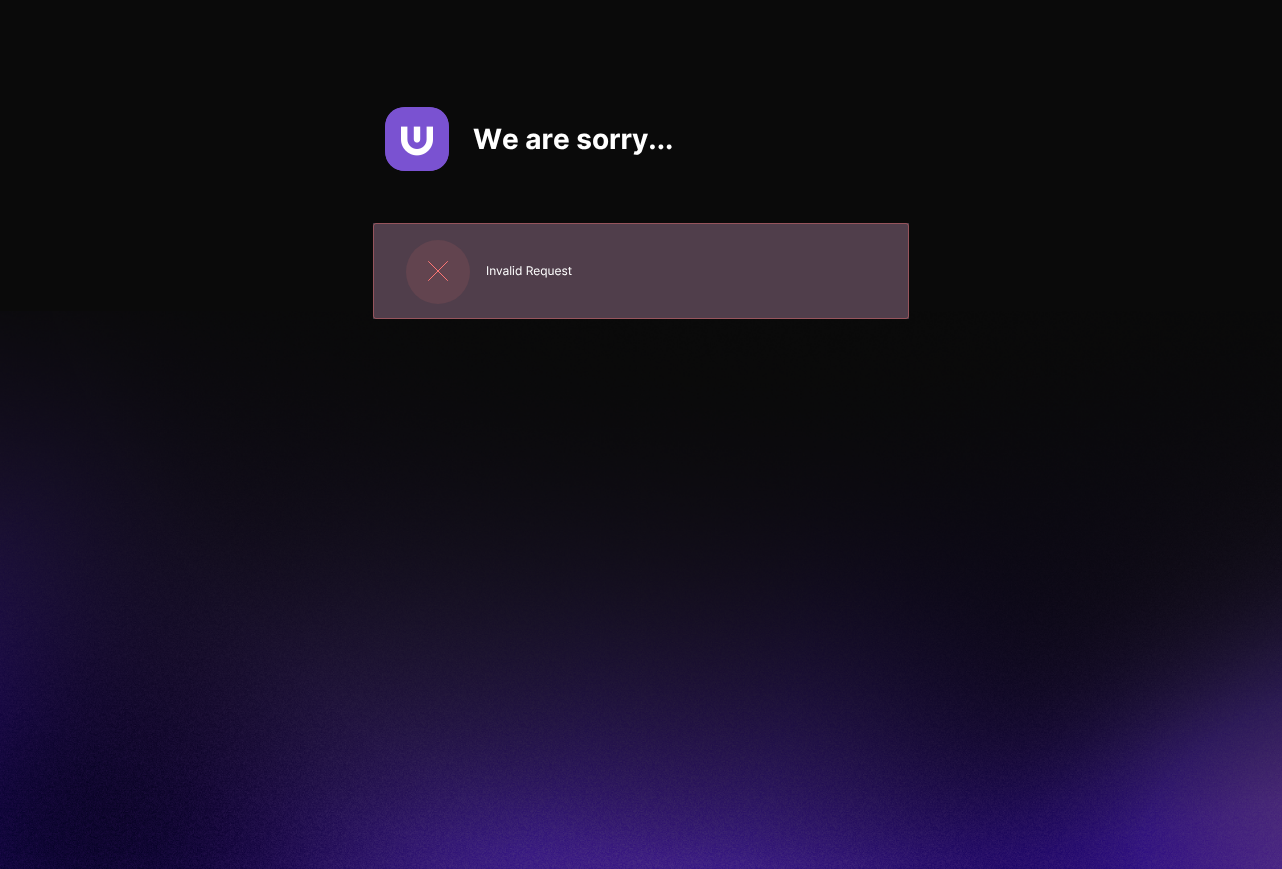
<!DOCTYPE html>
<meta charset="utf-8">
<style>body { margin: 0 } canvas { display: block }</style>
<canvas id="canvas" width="1282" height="869"></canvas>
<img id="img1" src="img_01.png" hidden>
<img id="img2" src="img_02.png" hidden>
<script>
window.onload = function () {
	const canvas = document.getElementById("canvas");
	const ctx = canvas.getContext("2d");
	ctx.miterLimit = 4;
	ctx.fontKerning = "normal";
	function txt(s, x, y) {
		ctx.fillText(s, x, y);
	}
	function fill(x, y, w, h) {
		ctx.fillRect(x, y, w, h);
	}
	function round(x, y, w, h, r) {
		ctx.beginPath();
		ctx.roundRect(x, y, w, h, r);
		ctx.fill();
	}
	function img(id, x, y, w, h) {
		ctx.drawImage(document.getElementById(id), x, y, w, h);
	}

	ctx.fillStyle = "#0A0A0A";
	fill(0, 0, 1282, 869);
	img("img1", 0, 311, 1282, 558);
	ctx.fillStyle = "#7A52D1";
	round(385, 107, 64, 64, 20);
	img("img2", 385, 107, 64, 64);
	ctx.fillStyle = "#3C3846";
	fill(373, 223, 536, 96);
	ctx.fillStyle = "#503E4B";
	round(373, 223, 536, 96, 3);
	ctx.beginPath();
	ctx.roundRect(373.5, 223.5, 535, 95, 2.5);
	ctx.strokeStyle = "rgba(255, 118, 117, 0.4)";
	ctx.stroke();
	ctx.fillStyle = "#62444F";
	ctx.beginPath();
	ctx.arc(438, 272, 32, 0, Math.PI * 2);
	ctx.fill();
	ctx.beginPath();
	ctx.moveTo(447.5, 261.5);
	ctx.lineTo(428.5, 280.5);
	ctx.moveTo(428.5, 261.5);
	ctx.lineTo(447.5, 280.5);
	ctx.strokeStyle = "#FF7675";
	ctx.lineCap = "round";
	ctx.lineJoin = "round";
	ctx.stroke();
	ctx.font = "800 28px Inter";
	ctx.fillStyle = "#FFFFFF";
	txt("We are sorry...", 473, 149);
	ctx.font = "12px Inter";
	txt("Invalid Request", 486, 275);
};
</script>
